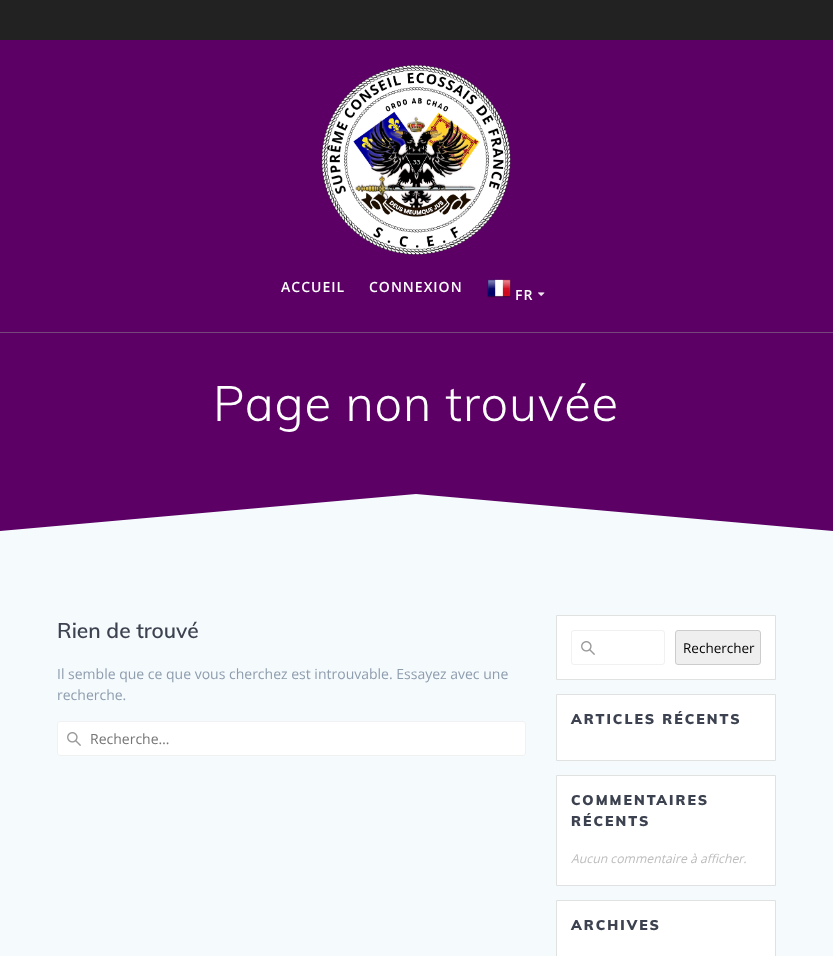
<!DOCTYPE html>
<meta charset="utf-8">
<style>body { margin: 0 } canvas { display: block }</style>
<canvas id="canvas" width="833" height="956"></canvas>
<img id="img1" src="img_01.png" hidden>
<img id="img2" src="img_02.png" hidden>
<img id="img3" src="img_03.png" hidden>
<img id="img4" src="img_04.png" hidden>
<script>
window.onload = function () {
	const canvas = document.getElementById("canvas");
	const ctx = canvas.getContext("2d");
	ctx.miterLimit = 4;
	ctx.fontKerning = "normal";
	function txt(s, x, y) {
		ctx.fillText(s, x, y);
	}
	function fill(x, y, w, h) {
		ctx.fillRect(x, y, w, h);
	}
	function round(x, y, w, h, r) {
		ctx.beginPath();
		ctx.roundRect(x, y, w, h, r);
		ctx.fill();
	}
	function img(id, x, y, w, h) {
		ctx.drawImage(document.getElementById(id), x, y, w, h);
	}

	ctx.fillStyle = "#5C0066";
	fill(0, 0, 833, 956);
	ctx.fillStyle = "#222222";
	fill(0, 0, 833, 40);
	ctx.fillStyle = "#744679";
	fill(0, 332, 833, 1);
	img("img1", 321, 65, 190, 190);
	img("img2", 487, 279, 24, 19);
	img("img3", 538, 292, 7, 4);
	ctx.fillStyle = "#F5FAFD";
	ctx.beginPath();
	ctx.moveTo(416, 494);
	ctx.lineTo(833, 531);
	ctx.lineTo(833, 534);
	ctx.lineTo(-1, 534);
	ctx.lineTo(-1, 531);
	ctx.closePath();
	ctx.fill();
	fill(0, 534, 833, 422);
	ctx.fillStyle = "#FFFFFF";
	round(57, 721, 469, 35, 3);
	img("img4", 67, 732, 14, 14);
	ctx.beginPath();
	ctx.roundRect(57.5, 721.5, 468, 34, 2.5);
	ctx.strokeStyle = "#F1F1F1";
	ctx.stroke();
	ctx.beginPath();
	ctx.rect(556.5, 615.5, 219, 64);
	ctx.fill();
	ctx.strokeStyle = "#E0E1E1";
	ctx.stroke();
	img("img4", 581, 641, 14, 14);
	ctx.beginPath();
	ctx.roundRect(571.5, 630.5, 93, 34, 2.5);
	ctx.strokeStyle = "#F1F1F1";
	ctx.stroke();
	ctx.fillStyle = "#EFEFEF";
	ctx.beginPath();
	ctx.roundRect(675.5, 630.5, 85, 34, 2.5);
	ctx.fill();
	ctx.strokeStyle = "#CCCCCC";
	ctx.stroke();
	ctx.fillStyle = "#FFFFFF";
	ctx.beginPath();
	ctx.rect(556.5, 694.5, 219, 66);
	ctx.fill();
	ctx.strokeStyle = "#E0E1E1";
	ctx.stroke();
	ctx.beginPath();
	ctx.rect(556.5, 775.5, 219, 110);
	ctx.fill();
	ctx.stroke();
	ctx.beginPath();
	ctx.rect(556.5, 900.5, 219, 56);
	ctx.fill();
	ctx.stroke();
	ctx.letterSpacing = "1px";
	ctx.font = "600 14px Open Sans";
	txt("ACCUEIL", 281, 292);
	txt("CONNEXION", 369, 292);
	txt("FR", 515, 300);
	ctx.letterSpacing = "0.9px";
	ctx.font = "300 49px Muli";
	txt("Page non trouvée", 213, 421);
	ctx.letterSpacing = "0px";
	ctx.font = "600 21px Muli";
	ctx.fillStyle = "#3C424F";
	txt("Rien de trouvé", 57, 638);
	ctx.font = "14px Open Sans";
	ctx.fillStyle = "#8E9DAE";
	txt("Il semble que ce que vous cherchez est introuvable. Essayez avec une", 57, 679);
	txt("recherche.", 57, 700);
	ctx.fillStyle = "#757575";
	txt("Recherche…", 90, 744);
	ctx.font = "13.5px Open Sans";
	ctx.fillStyle = "#000000";
	txt("Rechercher", 683, 653);
	ctx.letterSpacing = "2px";
	ctx.font = "900 14px Muli";
	ctx.fillStyle = "#3C424F";
	txt("ARTICLES RÉCENTS", 571, 724);
	txt("COMMENTAIRES", 571, 805);
	txt("RÉCENTS", 571, 826);
	ctx.letterSpacing = "0px";
	ctx.font = "italic 12.25px Open Sans";
	ctx.fillStyle = "#BDBDBD";
	txt("Aucun commentaire à afficher.", 571, 863);
	ctx.letterSpacing = "2px";
	ctx.font = "900 14px Muli";
	ctx.fillStyle = "#3C424F";
	txt("ARCHIVES", 571, 930);
};
</script>
